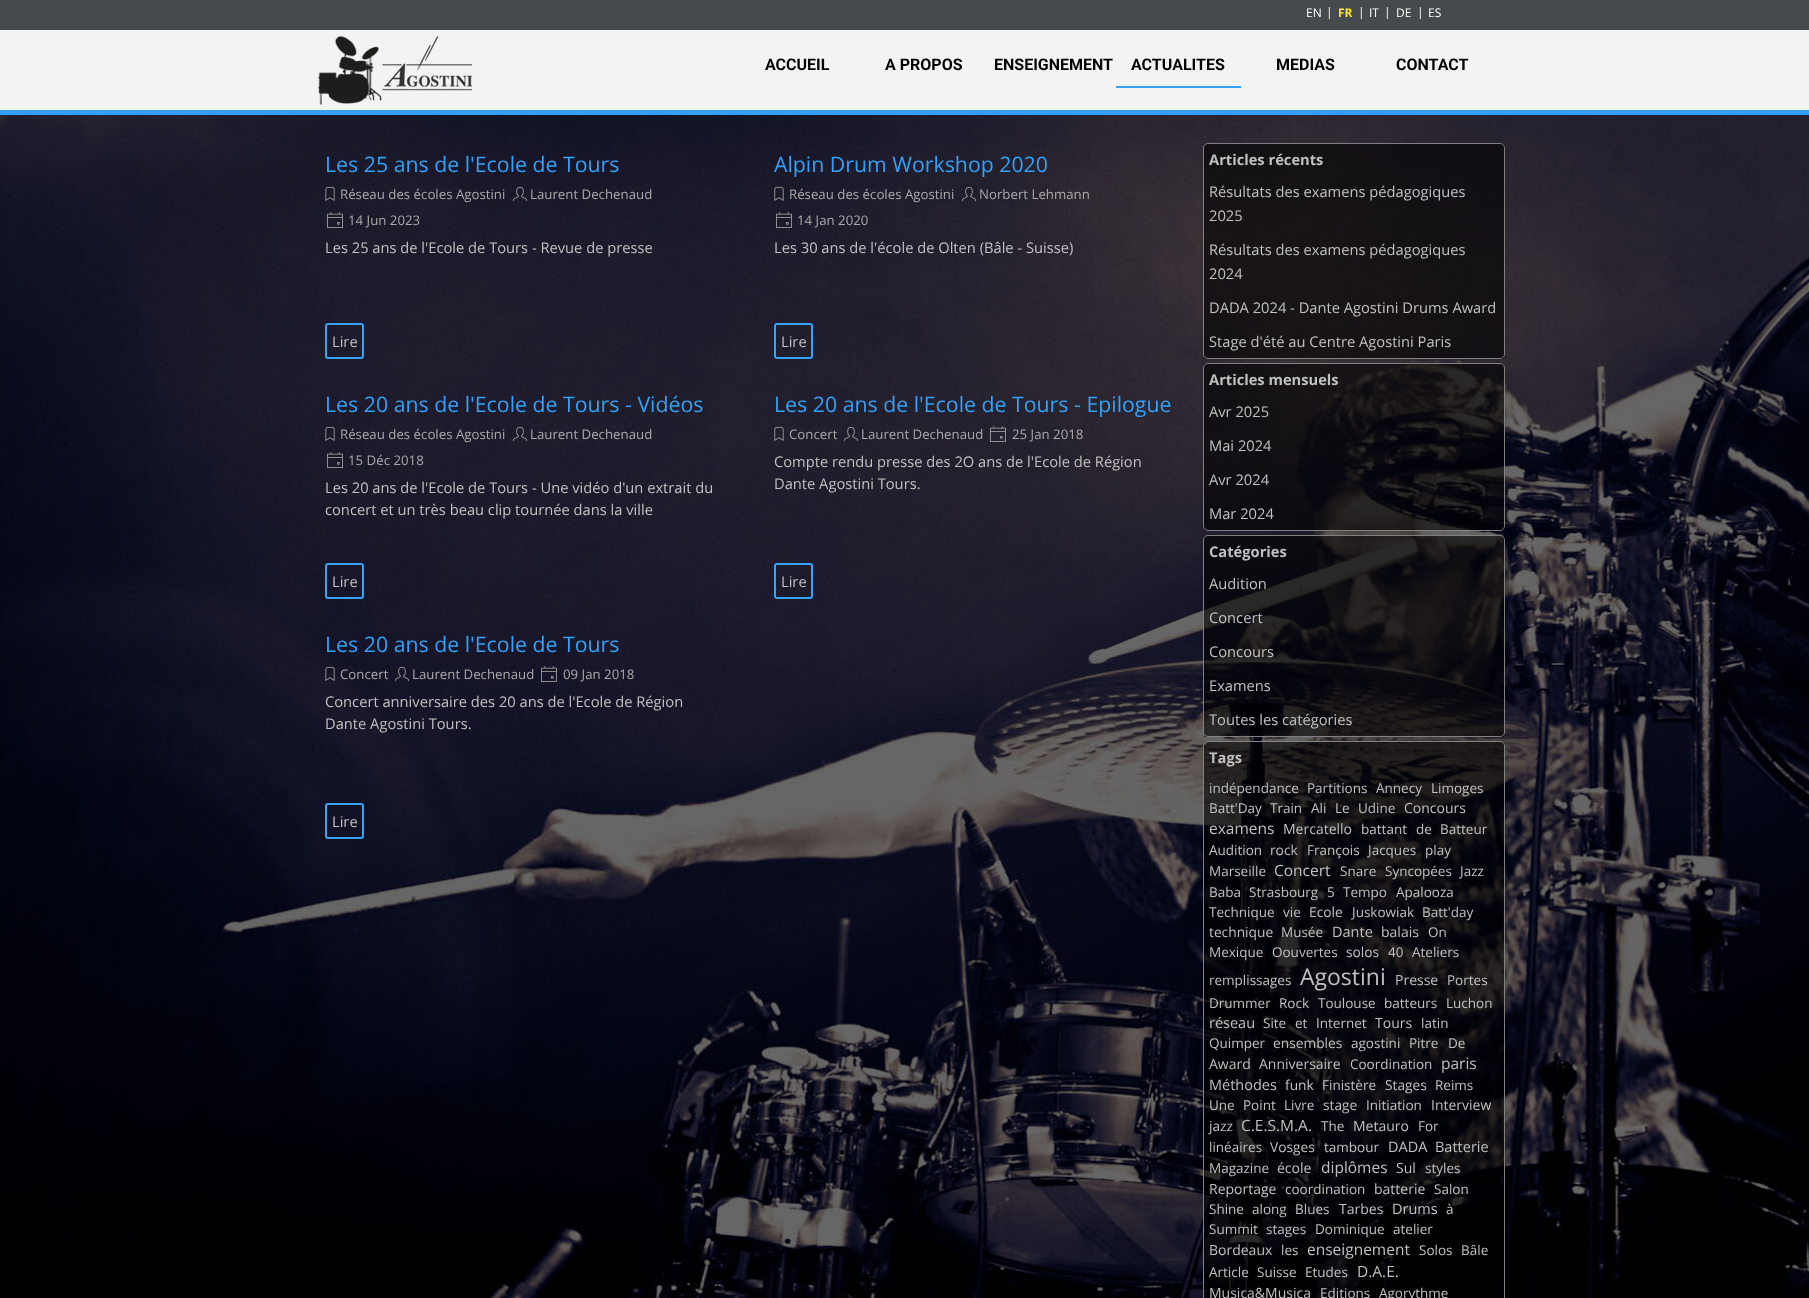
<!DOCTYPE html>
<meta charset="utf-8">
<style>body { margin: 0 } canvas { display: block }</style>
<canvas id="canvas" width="1809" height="1298"></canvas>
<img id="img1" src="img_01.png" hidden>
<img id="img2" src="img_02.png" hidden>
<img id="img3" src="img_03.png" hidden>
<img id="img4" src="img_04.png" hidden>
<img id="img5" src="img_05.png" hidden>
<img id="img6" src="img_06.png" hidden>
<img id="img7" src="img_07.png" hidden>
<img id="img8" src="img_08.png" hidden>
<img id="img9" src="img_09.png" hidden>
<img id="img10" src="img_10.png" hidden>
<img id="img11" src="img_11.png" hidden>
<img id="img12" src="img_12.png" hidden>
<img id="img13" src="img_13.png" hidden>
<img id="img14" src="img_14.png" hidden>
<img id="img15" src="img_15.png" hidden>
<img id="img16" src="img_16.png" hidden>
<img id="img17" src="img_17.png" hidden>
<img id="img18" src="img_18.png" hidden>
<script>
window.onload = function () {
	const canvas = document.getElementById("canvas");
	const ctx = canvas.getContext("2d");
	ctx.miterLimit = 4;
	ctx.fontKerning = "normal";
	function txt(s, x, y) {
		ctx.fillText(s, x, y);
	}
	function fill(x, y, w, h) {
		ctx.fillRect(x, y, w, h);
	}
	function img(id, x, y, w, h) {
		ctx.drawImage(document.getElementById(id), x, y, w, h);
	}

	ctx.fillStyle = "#FFFFFF";
	fill(0, 0, 1809, 1298);
	img("img1", 0, 115, 1809, 1183);
	ctx.fillStyle = "#F3F3F3";
	fill(0, 30, 1809, 80);
	ctx.fillStyle = "#454A4D";
	fill(0, 0, 1809, 30);
	ctx.fillStyle = "#369EFF";
	fill(0, 110, 1809, 5);
	img("img2", 318, 35, 155, 70);
	ctx.fillStyle = "#33A1F8";
	fill(1116, 86, 125, 2);
	img("img3", 325, 186, 10, 15);
	img("img4", 512, 187, 16, 15);
	img("img5", 327, 212, 16, 16);
	ctx.beginPath();
	ctx.roundRect(326, 324, 37, 34, 2);
	ctx.strokeStyle = "#36A2F8";
	ctx.lineWidth = 2;
	ctx.stroke();
	img("img6", 774, 186, 10, 15);
	img("img7", 961, 187, 16, 15);
	img("img8", 776, 212, 16, 16);
	ctx.beginPath();
	ctx.roundRect(775, 324, 37, 34, 2);
	ctx.stroke();
	img("img9", 325, 426, 10, 15);
	img("img10", 512, 427, 16, 15);
	img("img11", 327, 452, 16, 16);
	ctx.beginPath();
	ctx.roundRect(326, 564, 37, 34, 2);
	ctx.stroke();
	img("img12", 774, 426, 10, 15);
	img("img13", 843, 427, 16, 15);
	img("img14", 990, 426, 16, 16);
	ctx.beginPath();
	ctx.roundRect(775, 564, 37, 34, 2);
	ctx.stroke();
	img("img15", 325, 666, 10, 15);
	img("img16", 394, 667, 16, 15);
	img("img17", 541, 666, 16, 16);
	ctx.beginPath();
	ctx.roundRect(326, 804, 37, 34, 2);
	ctx.stroke();
	ctx.fillStyle = "rgba(0, 0, 0, 0.6)";
	fill(1204, 144, 300, 215);
	ctx.beginPath();
	ctx.roundRect(1203.5, 143.5, 301, 215, 4.5);
	ctx.strokeStyle = "#808080";
	ctx.lineWidth = 1;
	ctx.stroke();
	fill(1204, 364, 300, 167);
	ctx.beginPath();
	ctx.roundRect(1203.5, 363.5, 301, 167, 4.5);
	ctx.stroke();
	fill(1204, 536, 300, 201);
	ctx.beginPath();
	ctx.roundRect(1203.5, 535.5, 301, 201, 4.5);
	ctx.stroke();
	img("img18", 1204, 742, 301, 556);
	ctx.beginPath();
	ctx.roundRect(1203.5, 741.5, 301, 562, 4.5);
	ctx.stroke();
	ctx.font = "12px Open Sans";
	ctx.fillStyle = "#FFFFFF";
	txt("EN", 1306, 17);
	txt("|", 1326, 16);
	ctx.font = "bold 12px Open Sans";
	ctx.fillStyle = "#FFE12E";
	txt("FR", 1338, 17);
	ctx.font = "12px Open Sans";
	ctx.fillStyle = "#FFFFFF";
	txt("|", 1358, 16);
	txt("IT", 1369, 17);
	txt("|", 1384, 16);
	txt("DE", 1396, 17);
	txt("|", 1417, 16);
	txt("ES", 1428, 17);
	ctx.font = "bold 16px Roboto";
	ctx.fillStyle = "#000000";
	txt("ACCUEIL", 765, 70);
	txt("A PROPOS", 885, 70);
	txt("ENSEIGNEMENT", 994, 70);
	txt("ACTUALITES", 1131, 70);
	txt("MEDIAS", 1276, 70);
	txt("CONTACT", 1396, 70);
	ctx.font = "21.3px Open Sans";
	ctx.fillStyle = "#33A1F8";
	txt("Les 25 ans de l'Ecole de Tours", 325, 172);
	ctx.font = "13.25px Open Sans";
	ctx.fillStyle = "#A9A9A9";
	txt("Réseau des écoles Agostini", 340, 199);
	txt("Laurent Dechenaud", 530, 199);
	txt("14 Jun 2023", 348, 225);
	ctx.font = "14.7px Open Sans";
	ctx.fillStyle = "#C0C0C0";
	txt("Les 25 ans de l'Ecole de Tours - Revue de presse", 325, 253);
	txt("Lire", 332, 347);
	ctx.font = "21.3px Open Sans";
	ctx.fillStyle = "#33A1F8";
	txt("Alpin Drum Workshop 2020", 774, 172);
	ctx.font = "13.25px Open Sans";
	ctx.fillStyle = "#A9A9A9";
	txt("Réseau des écoles Agostini", 789, 199);
	txt("Norbert Lehmann", 979, 199);
	txt("14 Jan 2020", 797, 225);
	ctx.font = "14.7px Open Sans";
	ctx.fillStyle = "#C0C0C0";
	txt("Les 30 ans de l'école de Olten (Bâle - Suisse)", 774, 253);
	txt("Lire", 781, 347);
	ctx.font = "21.3px Open Sans";
	ctx.fillStyle = "#33A1F8";
	txt("Les 20 ans de l'Ecole de Tours - Vidéos", 325, 412);
	ctx.font = "13.25px Open Sans";
	ctx.fillStyle = "#A9A9A9";
	txt("Réseau des écoles Agostini", 340, 439);
	txt("Laurent Dechenaud", 530, 439);
	txt("15 Déc 2018", 348, 465);
	ctx.font = "14.7px Open Sans";
	ctx.fillStyle = "#C0C0C0";
	txt("Les 20 ans de l'Ecole de Tours - Une vidéo d'un extrait du", 325, 493);
	txt("concert et un très beau clip tournée dans la ville", 325, 515);
	txt("Lire", 332, 587);
	ctx.font = "21.3px Open Sans";
	ctx.fillStyle = "#33A1F8";
	txt("Les 20 ans de l'Ecole de Tours - Epilogue", 774, 412);
	ctx.font = "13.25px Open Sans";
	ctx.fillStyle = "#A9A9A9";
	txt("Concert", 789, 439);
	txt("Laurent Dechenaud", 861, 439);
	txt("25 Jan 2018", 1012, 439);
	ctx.font = "14.7px Open Sans";
	ctx.fillStyle = "#C0C0C0";
	txt("Compte rendu presse des 2O ans de l'Ecole de Région", 774, 467);
	txt("Dante Agostini Tours.", 774, 489);
	txt("Lire", 781, 587);
	ctx.font = "21.3px Open Sans";
	ctx.fillStyle = "#33A1F8";
	txt("Les 20 ans de l'Ecole de Tours", 325, 652);
	ctx.font = "13.25px Open Sans";
	ctx.fillStyle = "#A9A9A9";
	txt("Concert", 340, 679);
	txt("Laurent Dechenaud", 412, 679);
	txt("09 Jan 2018", 563, 679);
	ctx.font = "14.7px Open Sans";
	ctx.fillStyle = "#C0C0C0";
	txt("Concert anniversaire des 20 ans de l'Ecole de Région", 325, 707);
	txt("Dante Agostini Tours.", 325, 729);
	txt("Lire", 332, 827);
	ctx.font = "bold 14.7px Open Sans";
	txt("Articles récents", 1209, 165);
	ctx.font = "14.7px Open Sans";
	txt("Résultats des examens pédagogiques", 1209, 197);
	txt("2025", 1209, 221);
	txt("Résultats des examens pédagogiques", 1209, 255);
	txt("2024", 1209, 279);
	txt("DADA 2024 - Dante Agostini Drums Award", 1209, 313);
	txt("Stage d'été au Centre Agostini Paris", 1209, 347);
	ctx.font = "bold 14.7px Open Sans";
	txt("Articles mensuels", 1209, 385);
	ctx.font = "14.7px Open Sans";
	txt("Avr 2025", 1209, 417);
	txt("Mai 2024", 1209, 451);
	txt("Avr 2024", 1209, 485);
	txt("Mar 2024", 1209, 519);
	ctx.font = "bold 14.7px Open Sans";
	txt("Catégories", 1209, 557);
	ctx.font = "14.7px Open Sans";
	txt("Audition", 1209, 589);
	txt("Concert", 1209, 623);
	txt("Concours", 1209, 657);
	txt("Examens", 1209, 691);
	txt("Toutes les catégories", 1209, 725);
	ctx.font = "bold 14.7px Open Sans";
	txt("Tags", 1209, 763);
	ctx.font = "13.5px Open Sans";
	txt("indépendance", 1209, 793);
	txt("Partitions", 1307, 793);
	txt("Annecy", 1376, 793);
	txt("Limoges", 1431, 793);
	txt("Batt'Day", 1209, 813);
	txt("Train", 1270, 813);
	txt("Ali", 1311, 813);
	txt("Le", 1335, 813);
	txt("Udine", 1358, 813);
	ctx.font = "14px Open Sans";
	txt("Concours", 1404, 813);
	ctx.font = "15.5px Open Sans";
	txt("examens", 1209, 834);
	ctx.font = "14px Open Sans";
	txt("Mercatello", 1283, 834);
	ctx.font = "13.5px Open Sans";
	txt("battant", 1361, 834);
	txt("de", 1416, 834);
	txt("Batteur", 1440, 834);
	txt("Audition", 1209, 855);
	ctx.font = "13.75px Open Sans";
	txt("rock", 1270, 855);
	ctx.font = "13.5px Open Sans";
	txt("François", 1307, 855);
	txt("Jacques", 1368, 855);
	txt("play", 1425, 855);
	txt("Marseille", 1209, 876);
	ctx.font = "15.5px Open Sans";
	txt("Concert", 1274, 876);
	ctx.font = "13.5px Open Sans";
	txt("Snare", 1340, 876);
	txt("Syncopées", 1385, 876);
	txt("Jazz", 1460, 876);
	txt("Baba", 1209, 897);
	txt("Strasbourg", 1249, 897);
	txt("5", 1327, 897);
	txt("Tempo", 1343, 897);
	txt("Apalooza", 1396, 897);
	txt("Technique", 1209, 917);
	txt("vie", 1283, 917);
	ctx.font = "13.75px Open Sans";
	txt("Ecole", 1309, 917);
	ctx.font = "13.5px Open Sans";
	txt("Juskowiak", 1352, 917);
	txt("Batt'day", 1422, 917);
	ctx.font = "13.75px Open Sans";
	txt("technique", 1209, 937);
	ctx.font = "13.5px Open Sans";
	txt("Musée", 1281, 937);
	ctx.font = "14.5px Open Sans";
	txt("Dante", 1332, 937);
	ctx.font = "14px Open Sans";
	txt("balais", 1381, 937);
	ctx.font = "13.5px Open Sans";
	txt("On", 1428, 937);
	txt("Mexique", 1209, 957);
	txt("Oouvertes", 1272, 957);
	ctx.font = "13.75px Open Sans";
	txt("solos", 1346, 957);
	ctx.font = "13.5px Open Sans";
	txt("40", 1388, 957);
	txt("Ateliers", 1412, 957);
	txt("remplissages", 1209, 985);
	ctx.font = "23px Open Sans";
	txt("Agostini", 1300, 985);
	ctx.font = "14px Open Sans";
	txt("Presse", 1395, 985);
	ctx.font = "13.5px Open Sans";
	txt("Portes", 1447, 985);
	txt("Drummer", 1209, 1008);
	txt("Rock", 1279, 1008);
	txt("Toulouse", 1318, 1008);
	txt("batteurs", 1384, 1008);
	txt("Luchon", 1446, 1008);
	ctx.font = "14.5px Open Sans";
	txt("réseau", 1209, 1028);
	ctx.font = "13.5px Open Sans";
	txt("Site", 1263, 1028);
	txt("et", 1295, 1028);
	txt("Internet", 1316, 1028);
	ctx.font = "14px Open Sans";
	txt("Tours", 1375, 1028);
	ctx.font = "13.5px Open Sans";
	txt("latin", 1421, 1028);
	txt("Quimper", 1209, 1048);
	ctx.font = "13.75px Open Sans";
	txt("ensembles", 1273, 1048);
	ctx.font = "13.5px Open Sans";
	txt("agostini", 1351, 1048);
	txt("Pitre", 1409, 1048);
	txt("De", 1448, 1048);
	ctx.font = "14px Open Sans";
	txt("Award", 1209, 1069);
	txt("Anniversaire", 1259, 1069);
	ctx.font = "13.5px Open Sans";
	txt("Coordination", 1350, 1069);
	ctx.font = "15.5px Open Sans";
	txt("paris", 1441, 1069);
	ctx.font = "14.5px Open Sans";
	txt("Méthodes", 1209, 1090);
	ctx.font = "13.75px Open Sans";
	txt("funk", 1285, 1090);
	ctx.font = "13.5px Open Sans";
	txt("Finistère", 1322, 1090);
	ctx.font = "13.75px Open Sans";
	txt("Stages", 1385, 1090);
	ctx.font = "13.5px Open Sans";
	txt("Reims", 1435, 1090);
	txt("Une", 1209, 1110);
	txt("Point", 1243, 1110);
	txt("Livre", 1284, 1110);
	ctx.font = "13.75px Open Sans";
	txt("stage", 1323, 1110);
	ctx.font = "13.5px Open Sans";
	txt("Initiation", 1366, 1110);
	ctx.font = "14px Open Sans";
	txt("Interview", 1431, 1110);
	ctx.font = "13.75px Open Sans";
	txt("jazz", 1209, 1131);
	ctx.font = "15.5px Open Sans";
	txt("C.E.S.M.A.", 1241, 1131);
	ctx.font = "13.5px Open Sans";
	txt("The", 1321, 1131);
	ctx.font = "14px Open Sans";
	txt("Metauro", 1353, 1131);
	ctx.font = "13.5px Open Sans";
	txt("For", 1418, 1131);
	txt("linéaires", 1209, 1152);
	ctx.font = "13.75px Open Sans";
	txt("Vosges", 1270, 1152);
	ctx.font = "13.5px Open Sans";
	txt("tambour", 1324, 1152);
	ctx.font = "14.5px Open Sans";
	txt("DADA", 1388, 1152);
	txt("Batterie", 1435, 1152);
	ctx.font = "13.5px Open Sans";
	txt("Magazine", 1209, 1173);
	ctx.font = "14px Open Sans";
	txt("école", 1277, 1173);
	ctx.font = "15.5px Open Sans";
	txt("diplômes", 1321, 1173);
	ctx.font = "14px Open Sans";
	txt("Sul", 1396, 1173);
	ctx.font = "13.5px Open Sans";
	txt("styles", 1425, 1173);
	ctx.font = "14px Open Sans";
	txt("Reportage", 1209, 1194);
	ctx.font = "13.5px Open Sans";
	txt("coordination", 1285, 1194);
	ctx.font = "14px Open Sans";
	txt("batterie", 1374, 1194);
	ctx.font = "13.5px Open Sans";
	txt("Salon", 1434, 1194);
	txt("Shine", 1209, 1214);
	txt("along", 1252, 1214);
	txt("Blues", 1295, 1214);
	ctx.font = "14px Open Sans";
	txt("Tarbes", 1339, 1214);
	ctx.font = "14.5px Open Sans";
	txt("Drums", 1392, 1214);
	ctx.font = "13.5px Open Sans";
	txt("à", 1446, 1214);
	txt("Summit", 1209, 1234);
	txt("stages", 1266, 1234);
	txt("Dominique", 1315, 1234);
	txt("atelier", 1393, 1234);
	ctx.font = "14px Open Sans";
	txt("Bordeaux", 1209, 1255);
	ctx.font = "13.5px Open Sans";
	txt("les", 1281, 1255);
	ctx.font = "15.5px Open Sans";
	txt("enseignement", 1307, 1255);
	ctx.font = "13.5px Open Sans";
	txt("Solos", 1419, 1255);
	txt("Bâle", 1461, 1255);
	txt("Article", 1209, 1277);
	txt("Suisse", 1257, 1277);
	txt("Etudes", 1305, 1277);
	ctx.font = "15.5px Open Sans";
	txt("D.A.E.", 1357, 1277);
	ctx.font = "14px Open Sans";
	txt("Musica&Musica", 1209, 1298);
	ctx.font = "13.5px Open Sans";
	txt("Editions", 1320, 1298);
	txt("Agorythme", 1379, 1298);
};
</script>
